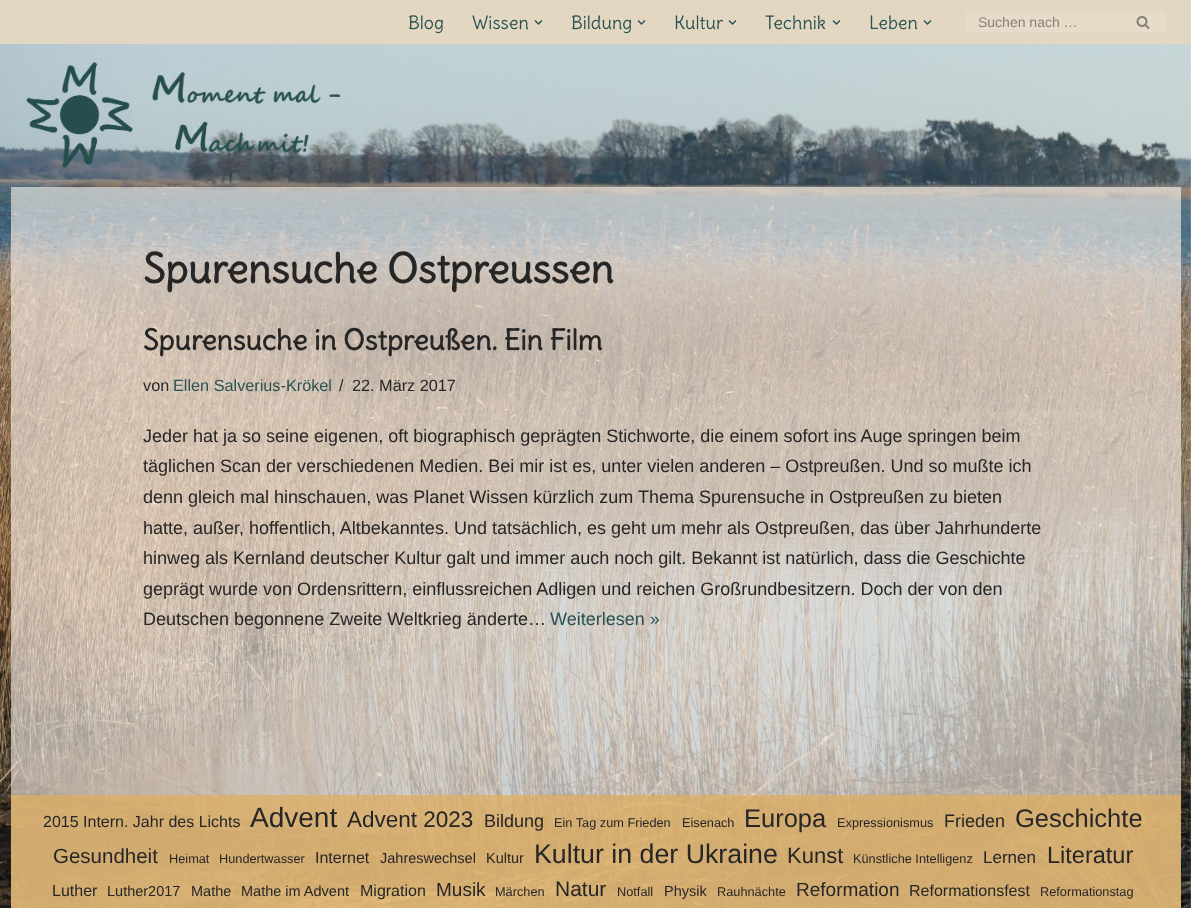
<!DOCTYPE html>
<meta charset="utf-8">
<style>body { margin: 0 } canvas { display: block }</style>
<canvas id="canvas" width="1191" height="908"></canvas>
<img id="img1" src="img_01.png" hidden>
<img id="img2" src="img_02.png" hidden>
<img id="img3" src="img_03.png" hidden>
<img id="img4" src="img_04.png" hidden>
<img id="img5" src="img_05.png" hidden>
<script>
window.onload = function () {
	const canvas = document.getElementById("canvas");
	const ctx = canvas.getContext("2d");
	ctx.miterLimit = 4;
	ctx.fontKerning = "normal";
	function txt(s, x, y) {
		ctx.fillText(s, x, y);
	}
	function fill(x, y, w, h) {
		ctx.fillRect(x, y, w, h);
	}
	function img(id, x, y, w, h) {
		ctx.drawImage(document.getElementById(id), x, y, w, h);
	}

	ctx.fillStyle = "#FFFFFF";
	fill(0, 0, 1191, 908);
	img("img1", 0, 0, 1191, 908);
	ctx.fillStyle = "rgba(227, 215, 193, 0.87)";
	fill(0, 0, 1191, 44);
	fill(0, 0, 1191, 44);
	img("img2", 534, 20, 9, 5);
	img("img3", 637, 20, 9, 5);
	img("img3", 728, 20, 9, 5);
	img("img2", 832, 20, 9, 5);
	img("img2", 923, 20, 9, 5);
	ctx.fillStyle = "#E6DCC9";
	fill(966, 12, 200, 20);
	img("img4", 1136, 16, 14, 13);
	img("img5", 26, 62, 315, 106);
	ctx.fillStyle = "rgba(255, 246, 240, 0.6)";
	fill(11, 187, 1170, 608);
	ctx.fillStyle = "rgba(227, 186, 120, 0.69)";
	fill(11, 795, 1170, 113);
	fill(11, 795, 1170, 113);
	ctx.font = "18px Delius";
	ctx.fillStyle = "#285252";
	txt("Blog", 408, 29);
	txt("Wissen", 472, 29);
	txt("Bildung", 571, 29);
	txt("Kultur", 674, 29);
	txt("Technik", 765, 29);
	txt("Leben", 869, 29);
	ctx.font = "14px Liberation Sans";
	ctx.fillStyle = "#878178";
	txt("Suchen nach …", 978, 27);
	ctx.font = "bold 40px Delius";
	ctx.fillStyle = "#272626";
	txt("Spurensuche Ostpreussen", 143, 283);
	ctx.font = "bold 28px Delius";
	txt("Spurensuche in Ostpreußen. Ein Film", 143, 350);
	ctx.font = "16.25px Liberation Sans";
	txt("von", 143, 391);
	ctx.fillStyle = "#285252";
	txt("Ellen Salverius-Krökel", 173, 391);
	ctx.fillStyle = "#272626";
	txt("/", 339, 391);
	txt("22. März 2017", 352, 391);
	ctx.font = "18px Liberation Sans";
	txt("Jeder hat ja so seine eigenen, oft biographisch geprägten Stichworte, die einem sofort ins Auge springen beim", 143, 442);
	txt("täglichen Scan der verschiedenen Medien. Bei mir ist es, unter vielen anderen – Ostpreußen. Und so mußte ich", 143, 472);
	txt("denn gleich mal hinschauen, was Planet Wissen kürzlich zum Thema Spurensuche in Ostpreußen zu bieten", 143, 503);
	txt("hatte, außer, hoffentlich, Altbekanntes. Und tatsächlich, es geht um mehr als Ostpreußen, das über Jahrhunderte", 143, 534);
	txt("hinweg als Kernland deutscher Kultur galt und immer auch noch gilt. Bekannt ist natürlich, dass die Geschichte", 143, 564);
	txt("geprägt wurde von Ordensrittern, einflussreichen Adligen und reichen Großrundbesitzern. Doch der von den", 143, 595);
	txt("Deutschen begonnene Zweite Weltkrieg änderte…", 143, 625);
	ctx.fillStyle = "#285252";
	txt("Weiterlesen »", 550, 625);
	ctx.font = "16px Liberation Sans";
	ctx.fillStyle = "#272626";
	txt("2015 Intern. Jahr des Lichts", 43, 827);
	ctx.font = "28px Liberation Sans";
	txt("Advent", 250, 827);
	ctx.font = "22.5px Liberation Sans";
	txt("Advent 2023", 347, 827);
	ctx.font = "18px Liberation Sans";
	txt("Bildung", 484, 827);
	ctx.font = "12.75px Liberation Sans";
	txt("Ein Tag zum Frieden", 554, 827);
	txt("Eisenach", 682, 827);
	ctx.font = "25.5px Liberation Sans";
	txt("Europa", 744, 827);
	ctx.font = "12.75px Liberation Sans";
	txt("Expressionismus", 837, 827);
	ctx.font = "18px Liberation Sans";
	txt("Frieden", 944, 827);
	ctx.font = "25.5px Liberation Sans";
	txt("Geschichte", 1015, 827);
	ctx.font = "20.5px Liberation Sans";
	txt("Gesundheit", 53, 863);
	ctx.font = "12.75px Liberation Sans";
	txt("Heimat", 169, 863);
	txt("Hundertwasser", 219, 863);
	ctx.font = "16px Liberation Sans";
	txt("Internet", 315, 863);
	ctx.font = "14.5px Liberation Sans";
	txt("Jahreswechsel", 380, 863);
	txt("Kultur", 486, 863);
	ctx.font = "26.75px Liberation Sans";
	txt("Kultur in der Ukraine", 534, 863);
	ctx.font = "22px Liberation Sans";
	txt("Kunst", 787, 863);
	ctx.font = "12.75px Liberation Sans";
	txt("Künstliche Intelligenz", 853, 863);
	ctx.font = "17px Liberation Sans";
	txt("Lernen", 983, 863);
	ctx.font = "23.5px Liberation Sans";
	txt("Literatur", 1047, 863);
	ctx.font = "16px Liberation Sans";
	txt("Luther", 52, 896);
	ctx.font = "14.5px Liberation Sans";
	txt("Luther2017", 107, 896);
	txt("Mathe", 191, 896);
	txt("Mathe im Advent", 241, 896);
	ctx.font = "16px Liberation Sans";
	txt("Migration", 360, 896);
	ctx.font = "19px Liberation Sans";
	txt("Musik", 436, 896);
	ctx.font = "12.75px Liberation Sans";
	txt("Märchen", 495, 896);
	ctx.font = "21px Liberation Sans";
	txt("Natur", 555, 896);
	ctx.font = "12.75px Liberation Sans";
	txt("Notfall", 617, 896);
	ctx.font = "14.5px Liberation Sans";
	txt("Physik", 664, 896);
	ctx.font = "12.75px Liberation Sans";
	txt("Rauhnächte", 717, 896);
	ctx.font = "19px Liberation Sans";
	txt("Reformation", 796, 896);
	ctx.font = "16px Liberation Sans";
	txt("Reformationsfest", 909, 896);
	ctx.font = "12.75px Liberation Sans";
	txt("Reformationstag", 1040, 896);
};
</script>
